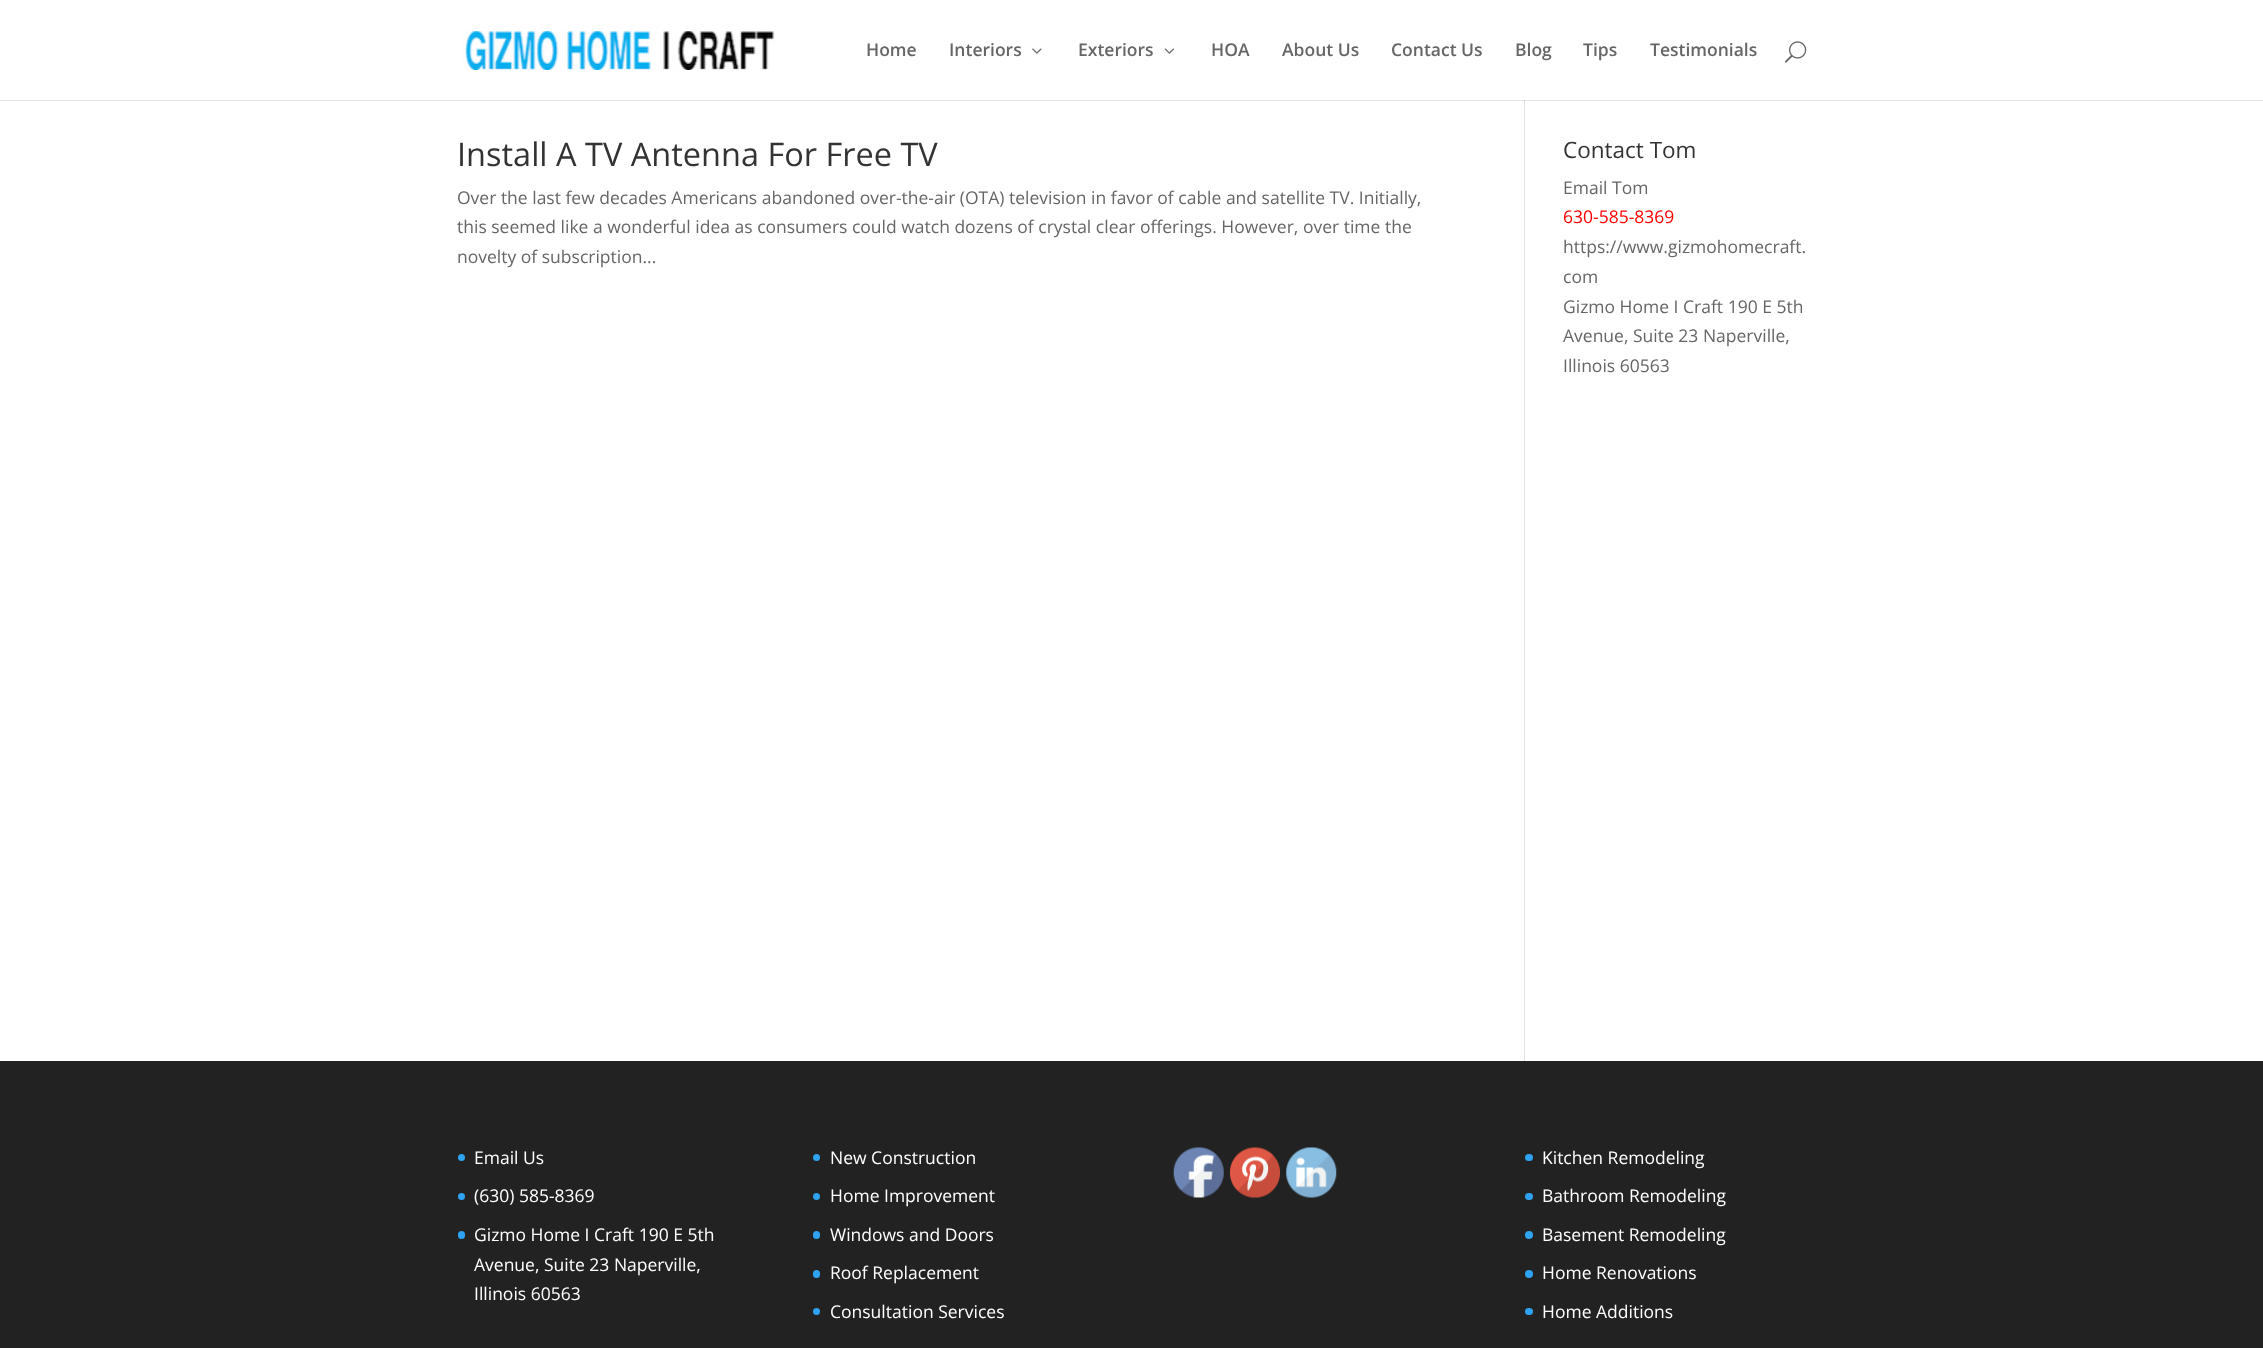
<!DOCTYPE html>
<meta charset="utf-8">
<style>body { margin: 0 } canvas { display: block }</style>
<canvas id="canvas" width="2263" height="1348"></canvas>
<img id="img1" src="img_01.png" hidden>
<img id="img2" src="img_02.png" hidden>
<img id="img3" src="img_03.png" hidden>
<img id="img4" src="img_04.png" hidden>
<img id="img5" src="img_05.png" hidden>
<img id="img6" src="img_06.png" hidden>
<img id="img7" src="img_07.png" hidden>
<script>
window.onload = function () {
	const canvas = document.getElementById("canvas");
	const ctx = canvas.getContext("2d");
	ctx.miterLimit = 4;
	ctx.fontKerning = "normal";
	function txt(s, x, y) {
		ctx.fillText(s, x, y);
	}
	function fill(x, y, w, h) {
		ctx.fillRect(x, y, w, h);
	}
	function round(x, y, w, h, r) {
		ctx.beginPath();
		ctx.roundRect(x, y, w, h, r);
		ctx.fill();
	}
	function img(id, x, y, w, h) {
		ctx.drawImage(document.getElementById(id), x, y, w, h);
	}

	ctx.fillStyle = "#FFFFFF";
	fill(0, 0, 2263, 1348);
	ctx.fillStyle = "#E2E2E2";
	fill(1524, 100, 1, 961);
	ctx.fillStyle = "rgba(0, 0, 0, 0.1)";
	ctx.beginPath();
	ctx.moveTo(0, 100);
	ctx.lineTo(0, 101);
	ctx.lineTo(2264, 101);
	ctx.lineTo(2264, 1);
	ctx.lineTo(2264, 100);
	ctx.closePath();
	ctx.fill();
	img("img1", 462, 31, 313, 39);
	img("img2", 1032, 48, 10, 6);
	img("img3", 1164, 48, 10, 6);
	img("img4", 1785, 41, 22, 22);
	ctx.fillStyle = "#222222";
	fill(0, 1061, 2263, 287);
	ctx.fillStyle = "#2EA3F2";
	ctx.beginPath();
	ctx.arc(461.5, 1157.5, 3.5, 0, Math.PI * 2);
	ctx.fill();
	ctx.beginPath();
	ctx.arc(461.5, 1196.5, 3.5, 0, Math.PI * 2);
	ctx.fill();
	round(458, 1231, 7, 8, 3.5);
	ctx.beginPath();
	ctx.arc(816.5, 1157.5, 3.5, 0, Math.PI * 2);
	ctx.fill();
	ctx.beginPath();
	ctx.arc(816.5, 1196.5, 3.5, 0, Math.PI * 2);
	ctx.fill();
	round(813, 1231, 7, 8, 3.5);
	round(813, 1270, 7, 8, 3.5);
	ctx.beginPath();
	ctx.arc(816.5, 1311.5, 3.5, 0, Math.PI * 2);
	ctx.fill();
	img("img5", 1173, 1147, 51, 51);
	img("img6", 1230, 1147, 50, 51);
	img("img7", 1286, 1147, 51, 51);
	round(1525, 1154, 8, 7, 3.5);
	round(1525, 1193, 8, 7, 3.5);
	ctx.beginPath();
	ctx.arc(1529, 1235, 4, 0, Math.PI * 2);
	ctx.fill();
	ctx.beginPath();
	ctx.arc(1529, 1274, 4, 0, Math.PI * 2);
	ctx.fill();
	round(1525, 1308, 8, 7, 3.5);
	ctx.font = "600 17.5px Open Sans";
	ctx.fillStyle = "#666666";
	txt("Home", 866, 56);
	txt("Interiors", 949, 56);
	txt("Exteriors", 1078, 56);
	txt("HOA", 1211, 56);
	txt("About Us", 1282, 56);
	txt("Contact Us", 1391, 56);
	txt("Blog", 1515, 56);
	txt("Tips", 1583, 56);
	txt("Testimonials", 1650, 56);
	ctx.font = "32.5px Open Sans";
	ctx.fillStyle = "#333333";
	txt("Install A TV Antenna For Free TV", 457, 166);
	ctx.font = "17.5px Open Sans";
	ctx.fillStyle = "#666666";
	txt("Over the last few decades Americans abandoned over-the-air (OTA) television in favor of cable and satellite TV. Initially,", 457, 204);
	txt("this seemed like a wonderful idea as consumers could watch dozens of crystal clear offerings. However, over time the", 457, 233);
	txt("novelty of subscription...", 457, 263);
	ctx.font = "22.5px Open Sans";
	ctx.fillStyle = "#333333";
	txt("Contact Tom", 1563, 158);
	ctx.font = "17.5px Open Sans";
	ctx.fillStyle = "#666666";
	txt("Email Tom", 1563, 194);
	ctx.fillStyle = "#FF0000";
	txt("630-585-8369", 1563, 223);
	ctx.fillStyle = "#666666";
	txt("https://www.gizmohomecraft.", 1563, 253);
	txt("com", 1563, 283);
	txt("Gizmo Home I Craft 190 E 5th", 1563, 313);
	txt("Avenue, Suite 23 Naperville,", 1563, 342);
	txt("Illinois 60563", 1563, 372);
	ctx.fillStyle = "#FFFFFF";
	txt("Email Us", 474, 1164);
	txt("(630) 585-8369", 474, 1202);
	txt("Gizmo Home I Craft 190 E 5th", 474, 1241);
	txt("Avenue, Suite 23 Naperville,", 474, 1271);
	txt("Illinois 60563", 474, 1300);
	txt("New Construction", 830, 1164);
	txt("Home Improvement", 830, 1202);
	txt("Windows and Doors", 830, 1241);
	txt("Roof Replacement", 830, 1279);
	txt("Consultation Services", 830, 1318);
	txt("Kitchen Remodeling", 1542, 1164);
	txt("Bathroom Remodeling", 1542, 1202);
	txt("Basement Remodeling", 1542, 1241);
	txt("Home Renovations", 1542, 1279);
	txt("Home Additions", 1542, 1318);
};
</script>
